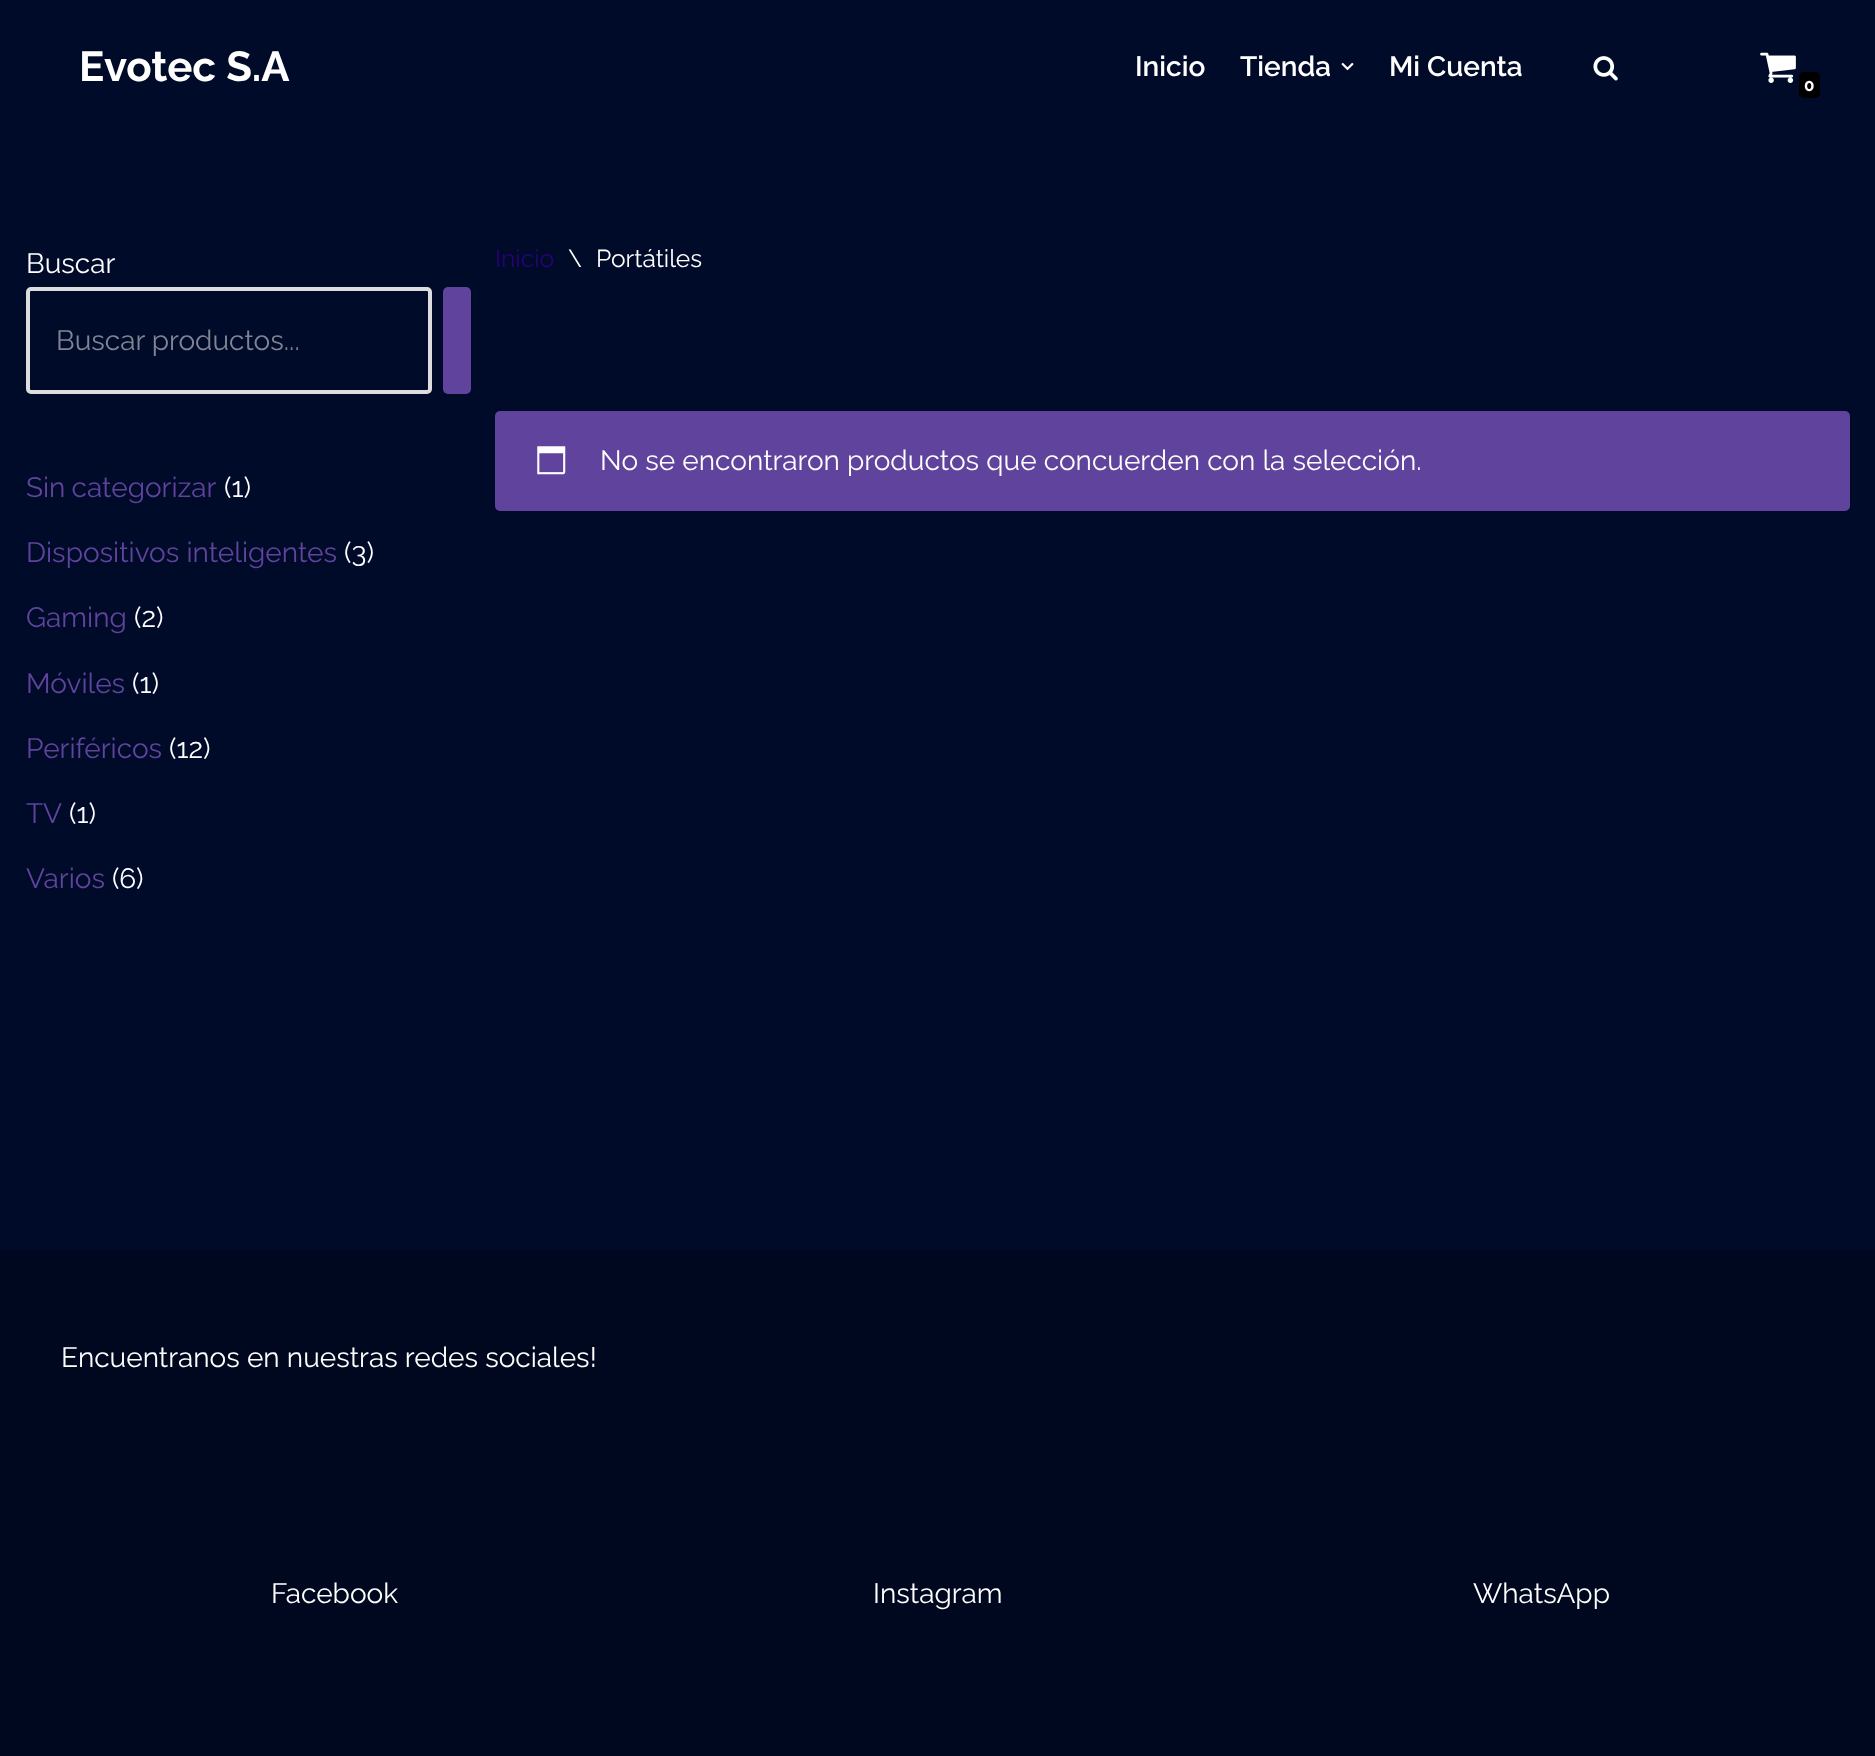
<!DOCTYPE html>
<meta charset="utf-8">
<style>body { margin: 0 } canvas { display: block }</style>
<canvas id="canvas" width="1875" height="1756"></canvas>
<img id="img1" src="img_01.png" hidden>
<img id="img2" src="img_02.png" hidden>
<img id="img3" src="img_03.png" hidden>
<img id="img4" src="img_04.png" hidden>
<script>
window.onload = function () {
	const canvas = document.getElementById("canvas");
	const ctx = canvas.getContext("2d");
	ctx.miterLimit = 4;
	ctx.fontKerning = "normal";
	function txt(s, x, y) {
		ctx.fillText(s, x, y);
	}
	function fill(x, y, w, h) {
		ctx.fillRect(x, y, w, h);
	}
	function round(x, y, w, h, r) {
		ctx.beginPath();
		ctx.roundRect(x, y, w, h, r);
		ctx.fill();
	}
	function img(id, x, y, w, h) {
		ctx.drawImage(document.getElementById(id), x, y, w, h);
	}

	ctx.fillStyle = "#000A29";
	fill(0, 0, 1875, 1756);
	img("img1", 1341, 62, 13, 9);
	img("img2", 1593, 56, 25, 25);
	img("img3", 1760, 52, 36, 31);
	ctx.fillStyle = "#000000";
	round(1799, 72, 21, 26, 5);
	ctx.beginPath();
	ctx.roundRect(28, 289, 402, 103, 3);
	ctx.strokeStyle = "#DDDDDD";
	ctx.lineWidth = 4;
	ctx.stroke();
	ctx.fillStyle = "#5F439C";
	round(443, 287, 28, 107, 5);
	round(495, 411, 1355, 100, 5);
	img("img4", 537, 446, 29, 29);
	ctx.fillStyle = "#00081F";
	fill(0, 1250, 1875, 506);
	ctx.font = "bold 42px Raleway";
	ctx.fillStyle = "#FFFFFF";
	txt("Evotec S.A", 79, 81);
	ctx.font = "600 28px Raleway";
	txt("Inicio", 1135, 76);
	txt("Tienda", 1240, 76);
	txt("Mi Cuenta", 1389, 76);
	ctx.font = "bold 17px Raleway";
	txt("0", 1804, 91);
	ctx.font = "28px Raleway";
	txt("Buscar", 26, 273);
	ctx.fillStyle = "#808594";
	txt("Buscar productos...", 56, 350);
	ctx.wordSpacing = "-1px";
	ctx.fillStyle = "#5F439C";
	txt("Sin categorizar", 26, 497);
	ctx.wordSpacing = "0px";
	ctx.fillStyle = "#FFFFFF";
	txt("(1)", 224, 497);
	ctx.fillStyle = "#5F439C";
	txt("Dispositivos inteligentes", 26, 562);
	ctx.fillStyle = "#FFFFFF";
	txt("(3)", 344, 562);
	ctx.fillStyle = "#5F439C";
	txt("Gaming", 26, 627);
	ctx.fillStyle = "#FFFFFF";
	txt("(2)", 134, 627);
	ctx.fillStyle = "#5F439C";
	txt("Móviles", 26, 693);
	ctx.fillStyle = "#FFFFFF";
	txt("(1)", 132, 693);
	ctx.fillStyle = "#5F439C";
	txt("Periféricos", 26, 758);
	ctx.fillStyle = "#FFFFFF";
	txt("(12)", 169, 758);
	ctx.fillStyle = "#5F439C";
	txt("TV", 26, 823);
	ctx.fillStyle = "#FFFFFF";
	txt("(1)", 69, 823);
	ctx.fillStyle = "#5F439C";
	txt("Varios", 26, 888);
	ctx.fillStyle = "#FFFFFF";
	txt("(6)", 112, 888);
	ctx.font = "24.5px Raleway";
	ctx.fillStyle = "#270276";
	txt("Inicio", 495, 267);
	ctx.fillStyle = "#FFFFFF";
	txt("\\", 568, 267);
	txt("Portátiles", 596, 267);
	ctx.font = "28px Raleway";
	txt("No se encontraron productos que concuerden con la selección.", 600, 470);
	txt("Encuentranos en nuestras redes sociales!", 61, 1367);
	txt("Facebook", 271, 1603);
	txt("Instagram", 873, 1603);
	txt("WhatsApp", 1473, 1603);
};
</script>
